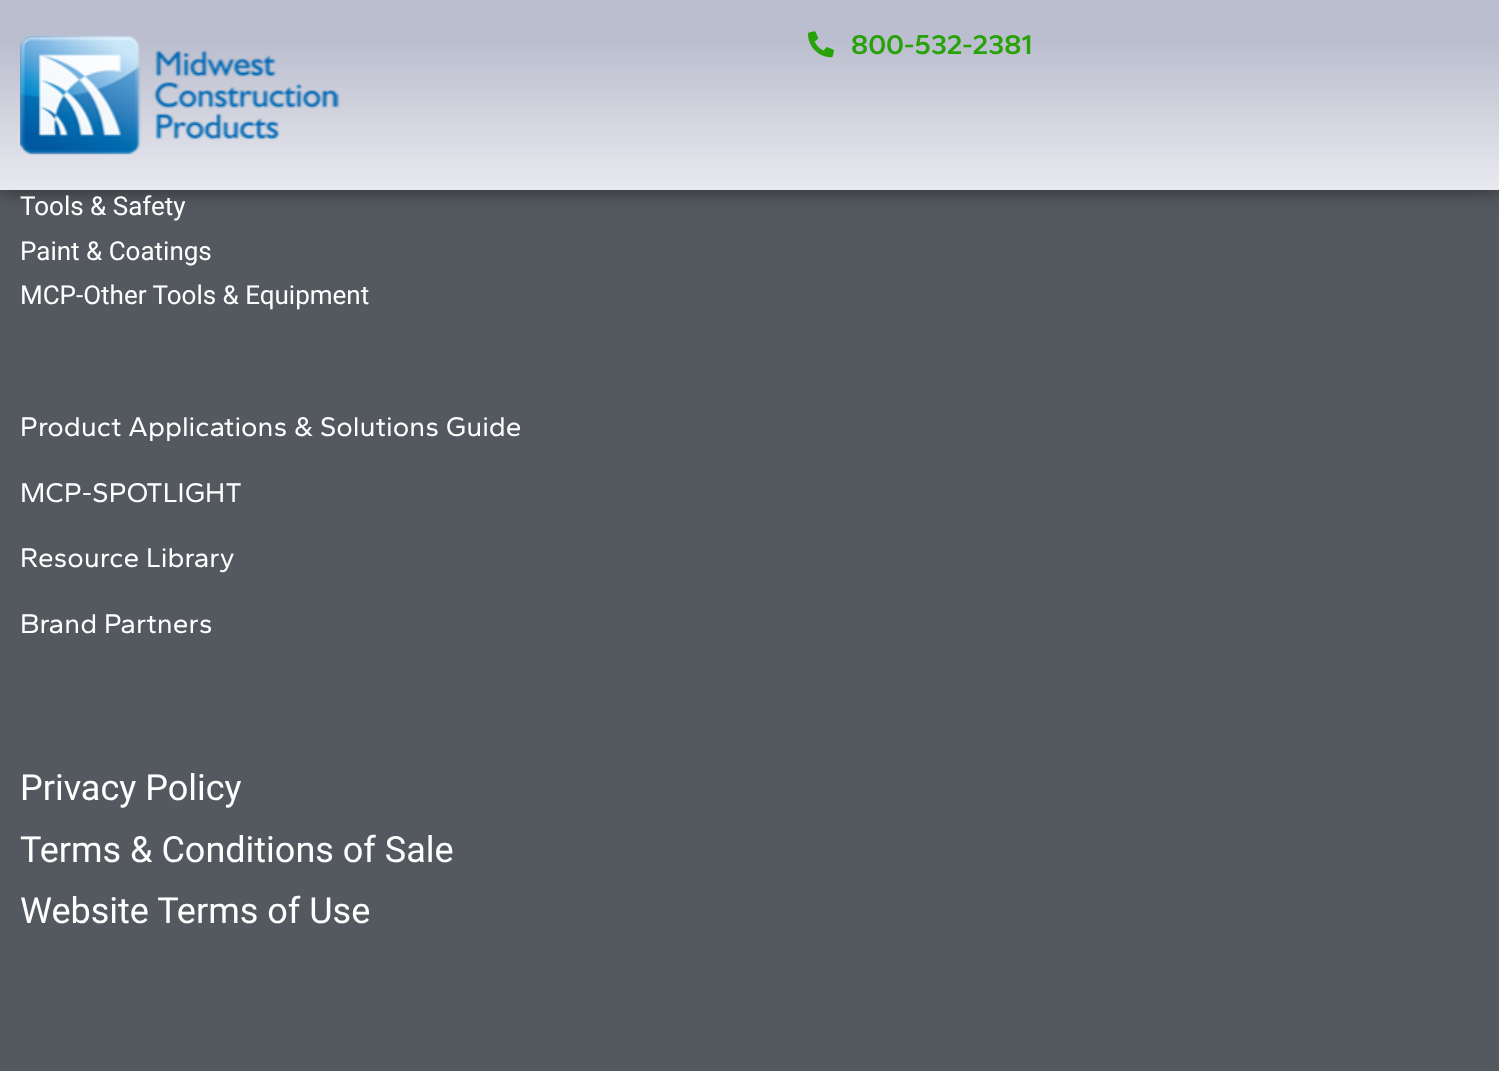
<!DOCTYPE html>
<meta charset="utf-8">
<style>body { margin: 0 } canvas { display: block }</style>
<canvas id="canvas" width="1499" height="1071"></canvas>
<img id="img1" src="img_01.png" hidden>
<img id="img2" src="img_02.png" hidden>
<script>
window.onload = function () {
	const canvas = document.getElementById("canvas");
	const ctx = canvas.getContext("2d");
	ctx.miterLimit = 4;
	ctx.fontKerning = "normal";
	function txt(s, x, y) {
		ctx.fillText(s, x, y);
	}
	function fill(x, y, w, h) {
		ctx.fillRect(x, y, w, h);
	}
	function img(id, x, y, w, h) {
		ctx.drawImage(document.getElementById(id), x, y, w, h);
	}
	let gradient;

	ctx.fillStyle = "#54595F";
	fill(0, 0, 1499, 1071);
	ctx.fillStyle = "rgba(0, 0, 0, 0.5)";
	ctx.filter = "blur(10px)";
	ctx.beginPath();
	ctx.rect(0, 0, 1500, 190);
	ctx.fill();
	ctx.filter = "none";
	gradient = ctx.createLinearGradient(750, 190, 750, 0);
	gradient.addColorStop(0.01, "#E8E9EF");
	gradient.addColorStop(0.78, "#BBBECE");
	ctx.fillStyle = gradient;
	fill(0, 0, 1499, 190);
	img("img1", 20, 36, 320, 119);
	img("img2", 808, 31, 26, 27);
	ctx.font = "600 28px Gantari";
	ctx.fillStyle = "#27A208";
	txt("800-532-2381", 851, 54);
	ctx.font = "26px Roboto";
	ctx.fillStyle = "#FFFFFF";
	txt("Tools & Safety", 20, 215);
	txt("Paint & Coatings", 20, 260);
	txt("MCP-Other Tools & Equipment", 20, 304);
	ctx.font = "28px Gantari";
	txt("Product Applications & Solutions Guide", 20, 436);
	txt("MCP-SPOTLIGHT", 20, 502);
	txt("Resource Library", 20, 567);
	txt("Brand Partners", 20, 633);
	ctx.font = "36px Roboto";
	txt("Privacy Policy", 20, 800);
	txt("Terms & Conditions of Sale", 20, 862);
	txt("Website Terms of Use", 20, 923);
};
</script>
